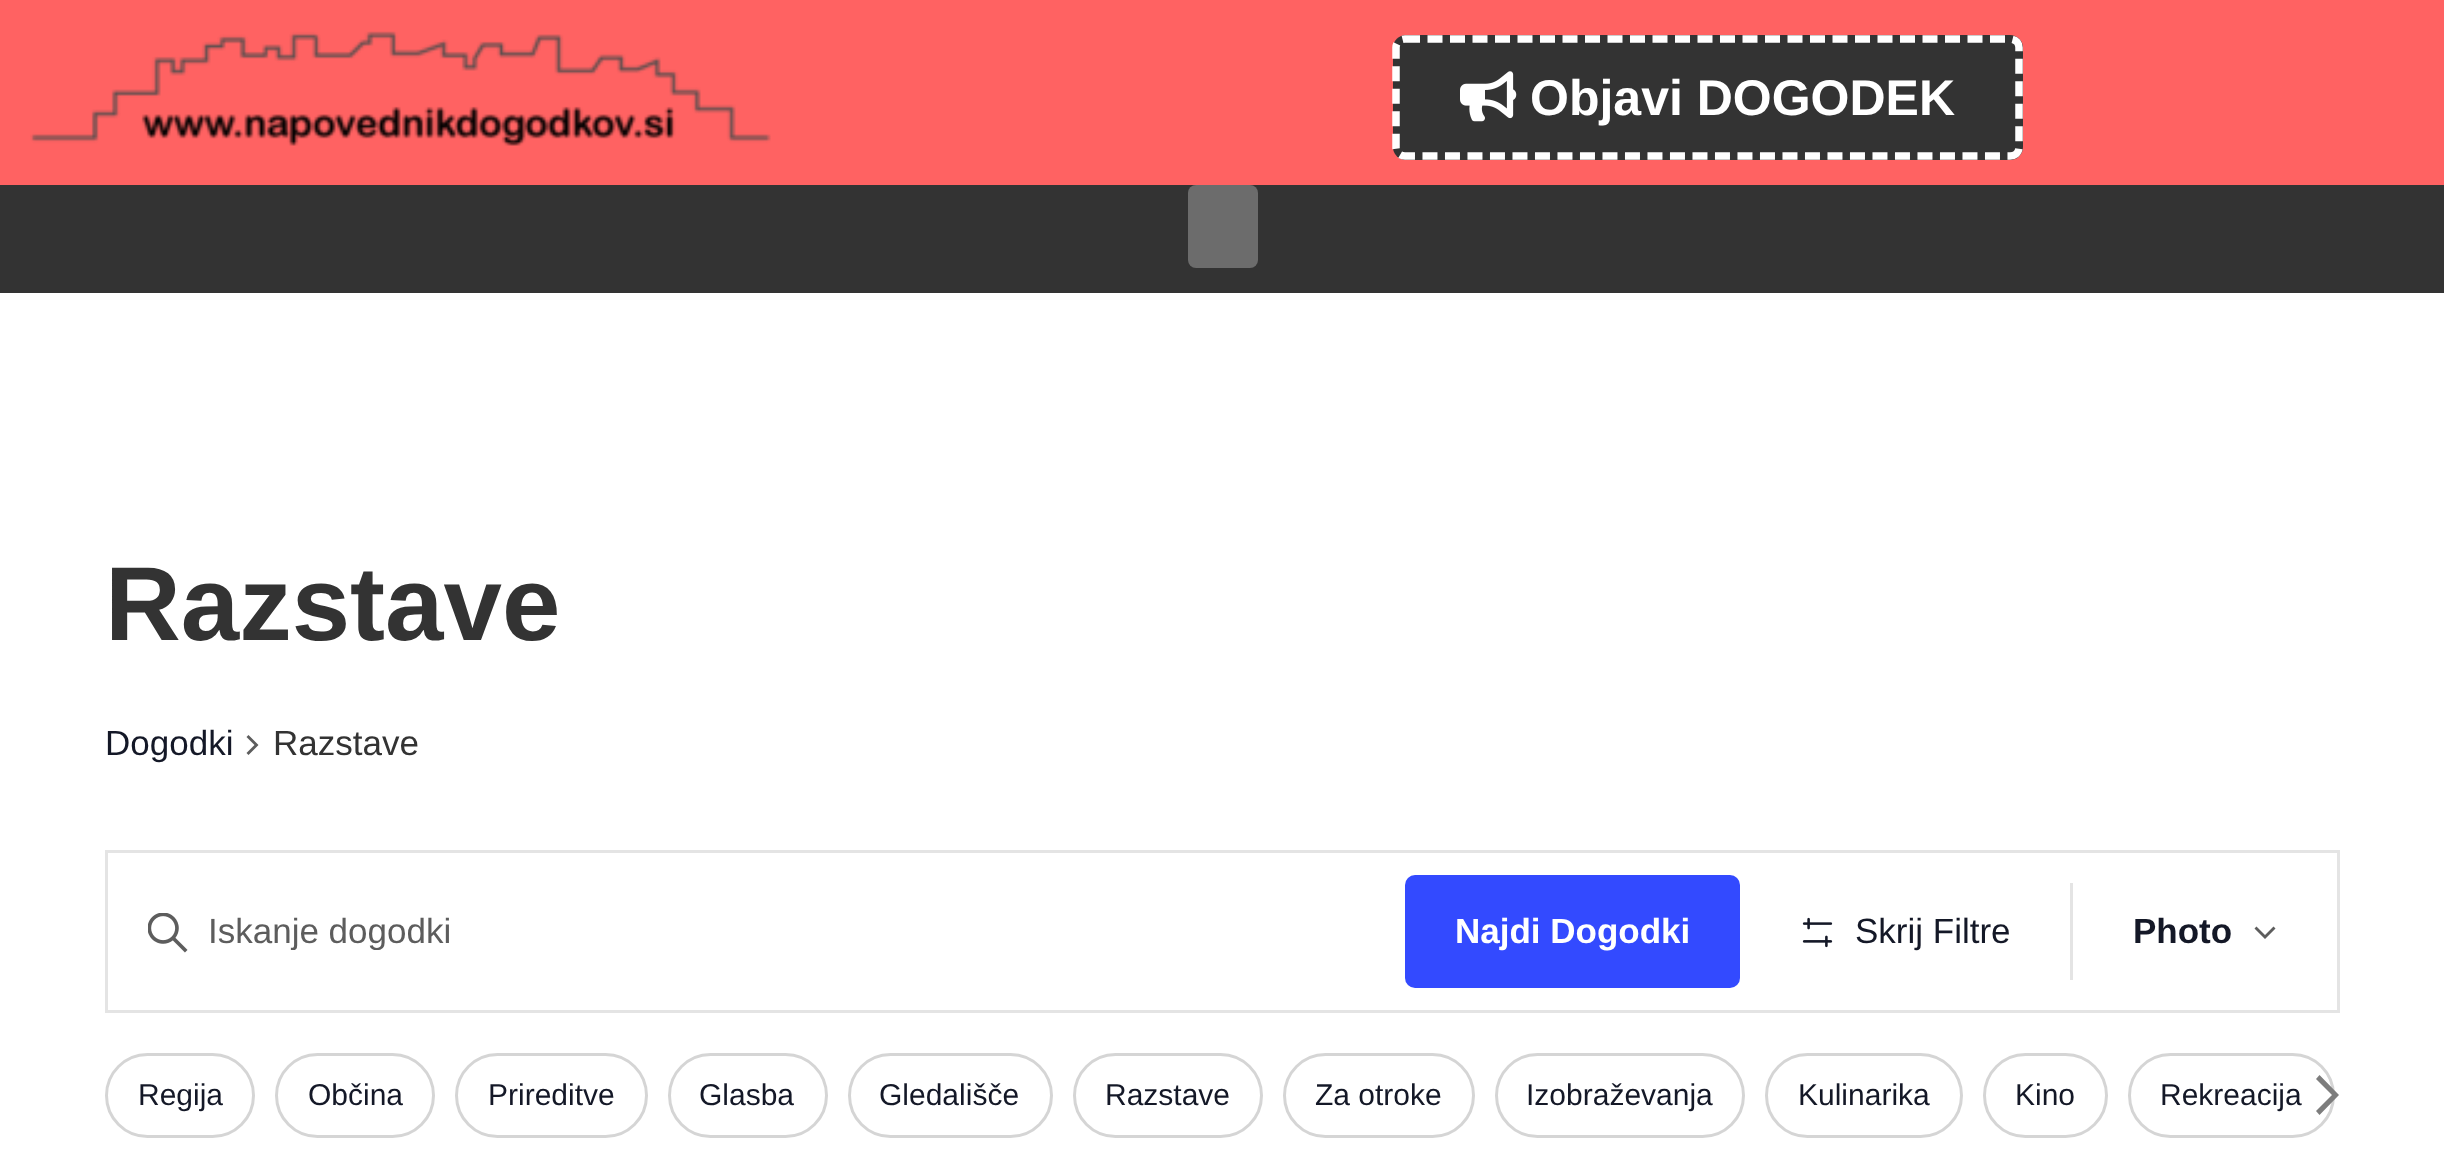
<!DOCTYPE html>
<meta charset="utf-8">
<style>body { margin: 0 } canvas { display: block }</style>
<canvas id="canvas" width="2444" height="1170"></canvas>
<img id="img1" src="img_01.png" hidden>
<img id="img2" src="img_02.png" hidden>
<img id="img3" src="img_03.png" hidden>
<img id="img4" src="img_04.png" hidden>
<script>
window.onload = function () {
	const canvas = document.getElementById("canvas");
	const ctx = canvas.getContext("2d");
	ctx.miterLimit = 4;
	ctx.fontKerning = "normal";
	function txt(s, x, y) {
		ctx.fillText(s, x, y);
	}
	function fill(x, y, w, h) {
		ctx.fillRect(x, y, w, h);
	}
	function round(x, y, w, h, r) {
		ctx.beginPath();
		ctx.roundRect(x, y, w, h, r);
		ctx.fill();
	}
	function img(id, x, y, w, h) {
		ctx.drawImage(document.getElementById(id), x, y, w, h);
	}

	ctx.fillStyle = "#FFFFFF";
	fill(0, 0, 2444, 1170);
	ctx.fillStyle = "#FF6262";
	fill(0, 0, 2444, 185);
	img("img1", 30, 31, 741, 115);
	ctx.fillStyle = "#333333";
	round(1393, 35, 630, 125, 13);
	ctx.beginPath();
	ctx.moveTo(1405, 39);
	ctx.lineTo(2010, 39);
	ctx.bezierCurveTo(2015, 39, 2019, 42.5, 2019, 47.5);
	ctx.lineTo(2019, 147.5);
	ctx.bezierCurveTo(2019, 152.5, 2015, 156, 2010, 156);
	ctx.lineTo(1405, 156);
	ctx.bezierCurveTo(1400, 156, 1396, 152.5, 1396, 147.5);
	ctx.lineTo(1396, 47.5);
	ctx.bezierCurveTo(1396, 42.5, 1400, 39, 1405, 39);
	ctx.closePath();
	ctx.strokeStyle = "#FFFFFF";
	ctx.lineWidth = 7.5;
	ctx.setLineDash([15, 7.5]);
	ctx.stroke();
	img("img2", 1460, 71, 57, 51);
	fill(0, 185, 2444, 108);
	ctx.fillStyle = "#6C6C6C";
	round(1188, 185, 70, 83, 8);
	ctx.fillStyle = "#5D5D5D";
	ctx.beginPath();
	ctx.moveTo(246.5, 737);
	ctx.lineTo(248.5, 735);
	ctx.lineTo(258.5, 745);
	ctx.lineTo(248.5, 755);
	ctx.lineTo(246.5, 753);
	ctx.lineTo(254.5, 745);
	ctx.closePath();
	ctx.fill();
	ctx.strokeStyle = "#E4E4E4";
	ctx.lineWidth = 3;
	ctx.setLineDash([]);
	ctx.strokeRect(106.5, 851.5, 2232, 160);
	img("img3", 148, 913, 40, 40);
	ctx.fillStyle = "#334AFF";
	round(1405, 875, 335, 113, 10);
	ctx.fillStyle = "#E4E4E4";
	fill(2070, 883, 3, 97);
	img("img4", 1802, 917, 31, 31);
	ctx.fillStyle = "#5D5D5D";
	ctx.beginPath();
	ctx.moveTo(2256.5, 926.5);
	ctx.lineTo(2265, 935);
	ctx.lineTo(2273.5, 926.5);
	ctx.lineTo(2275.5, 928.5);
	ctx.lineTo(2265, 939);
	ctx.lineTo(2254.5, 928.5);
	ctx.closePath();
	ctx.fill("evenodd");
	ctx.beginPath();
	ctx.roundRect(106.5, 1054.5, 147, 82, 41);
	ctx.strokeStyle = "#D5D5D5";
	ctx.stroke();
	ctx.beginPath();
	ctx.roundRect(276.5, 1054.5, 157, 82, 41);
	ctx.stroke();
	ctx.beginPath();
	ctx.roundRect(456.5, 1054.5, 190, 82, 41);
	ctx.stroke();
	ctx.beginPath();
	ctx.roundRect(669.5, 1054.5, 157, 82, 41);
	ctx.stroke();
	ctx.beginPath();
	ctx.roundRect(849.5, 1054.5, 202, 82, 41);
	ctx.stroke();
	ctx.beginPath();
	ctx.roundRect(1074.5, 1054.5, 187, 82, 41);
	ctx.stroke();
	ctx.beginPath();
	ctx.roundRect(1284.5, 1054.5, 189, 82, 41);
	ctx.stroke();
	ctx.beginPath();
	ctx.roundRect(1496.5, 1054.5, 247, 82, 41);
	ctx.stroke();
	ctx.beginPath();
	ctx.roundRect(1766.5, 1054.5, 195, 82, 41);
	ctx.stroke();
	ctx.beginPath();
	ctx.roundRect(1984.5, 1054.5, 122, 82, 41);
	ctx.stroke();
	ctx.beginPath();
	ctx.roundRect(2129.5, 1054.5, 204, 82, 41);
	ctx.stroke();
	ctx.fillStyle = "#7D7D7D";
	ctx.beginPath();
	ctx.moveTo(2316, 1079);
	ctx.lineTo(2319.5, 1075);
	ctx.lineTo(2339, 1095);
	ctx.lineTo(2319.5, 1115);
	ctx.lineTo(2316, 1111);
	ctx.lineTo(2332, 1095);
	ctx.closePath();
	ctx.fill();
	ctx.font = "bold 50px Liberation Sans";
	ctx.fillStyle = "#FFFFFF";
	txt("Objavi DOGODEK", 1530, 115);
	ctx.font = "bold 105px Liberation Sans";
	ctx.fillStyle = "#333333";
	txt("Razstave", 105, 640);
	ctx.font = "35px Liberation Sans";
	ctx.fillStyle = "#141827";
	txt("Dogodki", 105, 755);
	ctx.fillStyle = "#333333";
	txt("Razstave", 273, 755);
	ctx.save();
	ctx.beginPath();
	ctx.rect(208, 910, 1147, 40);
	ctx.clip();
	ctx.fillStyle = "#5D5D5D";
	txt("Iskanje dogodki", 208, 943);
	ctx.restore();
	ctx.font = "bold 35px Liberation Sans";
	ctx.fillStyle = "#FFFFFF";
	txt("Najdi Dogodki", 1455, 943);
	ctx.font = "35px Liberation Sans";
	ctx.fillStyle = "#141827";
	txt("Skrij Filtre", 1855, 943);
	ctx.font = "bold 35px Liberation Sans";
	txt("Photo", 2133, 943);
	ctx.font = "30px Liberation Sans";
	txt("Regija", 138, 1105);
	txt("Občina", 308, 1105);
	txt("Prireditve", 488, 1105);
	txt("Glasba", 699, 1105);
	txt("Gledališče", 879, 1105);
	txt("Razstave", 1105, 1105);
	txt("Za otroke", 1315, 1105);
	txt("Izobraževanja", 1526, 1105);
	txt("Kulinarika", 1798, 1105);
	txt("Kino", 2015, 1105);
	txt("Rekreacija", 2160, 1105);
};
</script>
